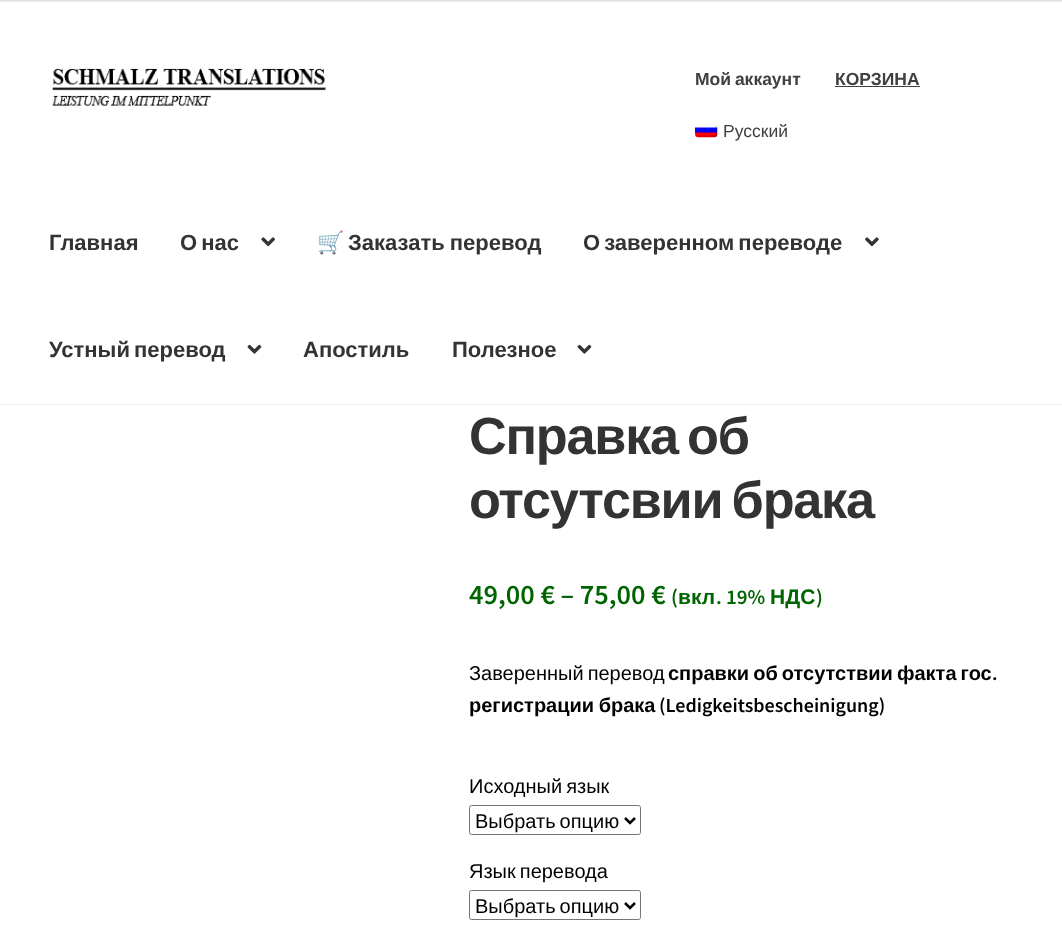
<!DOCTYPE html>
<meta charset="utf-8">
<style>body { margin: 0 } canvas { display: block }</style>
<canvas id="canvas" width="1062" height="937"></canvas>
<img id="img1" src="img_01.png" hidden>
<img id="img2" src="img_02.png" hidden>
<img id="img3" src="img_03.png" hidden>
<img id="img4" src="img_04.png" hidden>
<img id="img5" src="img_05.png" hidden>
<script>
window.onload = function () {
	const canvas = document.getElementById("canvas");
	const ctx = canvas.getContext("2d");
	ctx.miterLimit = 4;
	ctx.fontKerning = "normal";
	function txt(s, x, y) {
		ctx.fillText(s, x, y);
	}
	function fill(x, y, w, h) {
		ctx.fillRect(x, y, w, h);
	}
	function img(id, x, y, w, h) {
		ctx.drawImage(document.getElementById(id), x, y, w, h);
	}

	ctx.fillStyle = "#FFFFFF";
	fill(0, 0, 1062, 937);
	ctx.fillStyle = "rgba(0, 0, 0, 0.2)";
	ctx.filter = "blur(1px)";
	ctx.beginPath();
	ctx.rect(0, -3, 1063, 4);
	ctx.fill();
	ctx.filter = "none";
	ctx.fillStyle = "#F0F0F0";
	fill(0, 404, 1062, 1);
	img("img1", 52, 68, 274, 38);
	ctx.fillStyle = "#404040";
	fill(835, 86, 85, 1);
	img("img2", 695, 125, 23, 13);
	img("img3", 261, 237, 14, 10);
	img("img4", 865, 237, 14, 10);
	img("img5", 247, 344, 15, 10);
	img("img5", 577, 344, 15, 10);
	ctx.beginPath();
	ctx.roundRect(469.5, 805.5, 171, 29, 2);
	ctx.strokeStyle = "#767676";
	ctx.stroke();
	ctx.beginPath();
	ctx.moveTo(625, 818);
	ctx.lineTo(630, 823);
	ctx.lineTo(635, 818);
	ctx.strokeStyle = "#000000";
	ctx.lineWidth = 2.5;
	ctx.stroke();
	ctx.beginPath();
	ctx.roundRect(469.5, 890.5, 171, 29, 2);
	ctx.strokeStyle = "#767676";
	ctx.lineWidth = 1;
	ctx.stroke();
	ctx.beginPath();
	ctx.moveTo(625, 903);
	ctx.lineTo(630, 908);
	ctx.lineTo(635, 903);
	ctx.strokeStyle = "#000000";
	ctx.lineWidth = 2.5;
	ctx.stroke();
	ctx.wordSpacing = "-1px";
	ctx.font = "bold 17.5px Liberation Sans";
	txt("Мой аккаунт", 695, 85);
	ctx.wordSpacing = "0px";
	txt("КОРЗИНА", 835, 85);
	ctx.font = "17.5px Liberation Sans";
	txt("Русский", 723, 137);
	ctx.font = "bold 22px Liberation Sans";
	ctx.fillStyle = "#333333";
	txt("Главная", 49, 250);
	ctx.wordSpacing = "-2px";
	txt("О нас", 180, 250);
	ctx.wordSpacing = "0px";
	ctx.font = "bold 22px Noto Color Emoji";
	txt("🛒", 317, 250);
	ctx.wordSpacing = "-1px";
	ctx.font = "bold 22px Liberation Sans";
	txt("Заказать перевод", 348, 250);
	ctx.wordSpacing = "-2px";
	txt("О заверенном переводе", 583, 250);
	txt("Устный перевод", 49, 357);
	ctx.wordSpacing = "0px";
	txt("Апостиль", 303, 357);
	txt("Полезное", 452, 357);
	ctx.letterSpacing = "-1.25px";
	ctx.wordSpacing = "-4px";
	ctx.font = "bold 52.25px Liberation Sans";
	txt("Справка об", 469, 454);
	txt("отсутсвии брака", 469, 518);
	ctx.letterSpacing = "0px";
	ctx.wordSpacing = "0px";
	ctx.font = "600 28.25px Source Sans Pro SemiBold";
	ctx.fillStyle = "#006400";
	txt("49,00 € – 75,00 €", 469, 604);
	ctx.font = "600 21px Source Sans Pro SemiBold";
	txt("(", 671, 604);
	ctx.font = "bold 21px Liberation Sans";
	txt("вкл", 678, 604);
	ctx.font = "600 21px Source Sans Pro SemiBold";
	txt(". 19%", 716, 604);
	ctx.font = "bold 21px Liberation Sans";
	txt("НДС", 770, 604);
	ctx.font = "600 21px Source Sans Pro SemiBold";
	txt(")", 816, 604);
	ctx.wordSpacing = "-1.5px";
	ctx.font = "20px Liberation Sans";
	ctx.fillStyle = "#000000";
	txt("Заверенный перевод", 469, 680);
	ctx.font = "bold 20px Liberation Sans";
	txt("справки об отсутствии факта гос", 668, 680);
	ctx.wordSpacing = "0px";
	ctx.font = "600 20px Source Sans Pro SemiBold";
	txt(".", 992, 680);
	ctx.wordSpacing = "-1px";
	ctx.font = "bold 20px Liberation Sans";
	txt("регистрации брака", 469, 712);
	ctx.wordSpacing = "0px";
	ctx.font = "600 20px Source Sans Pro SemiBold";
	txt("(Ledigkeitsbescheinigung)", 659, 712);
	ctx.wordSpacing = "-1.5px";
	ctx.font = "20px Liberation Sans";
	txt("Исходный язык", 469, 793);
	txt("Выбрать опцию", 475, 828);
	txt("Язык перевода", 469, 878);
	txt("Выбрать опцию", 475, 913);
};
</script>
